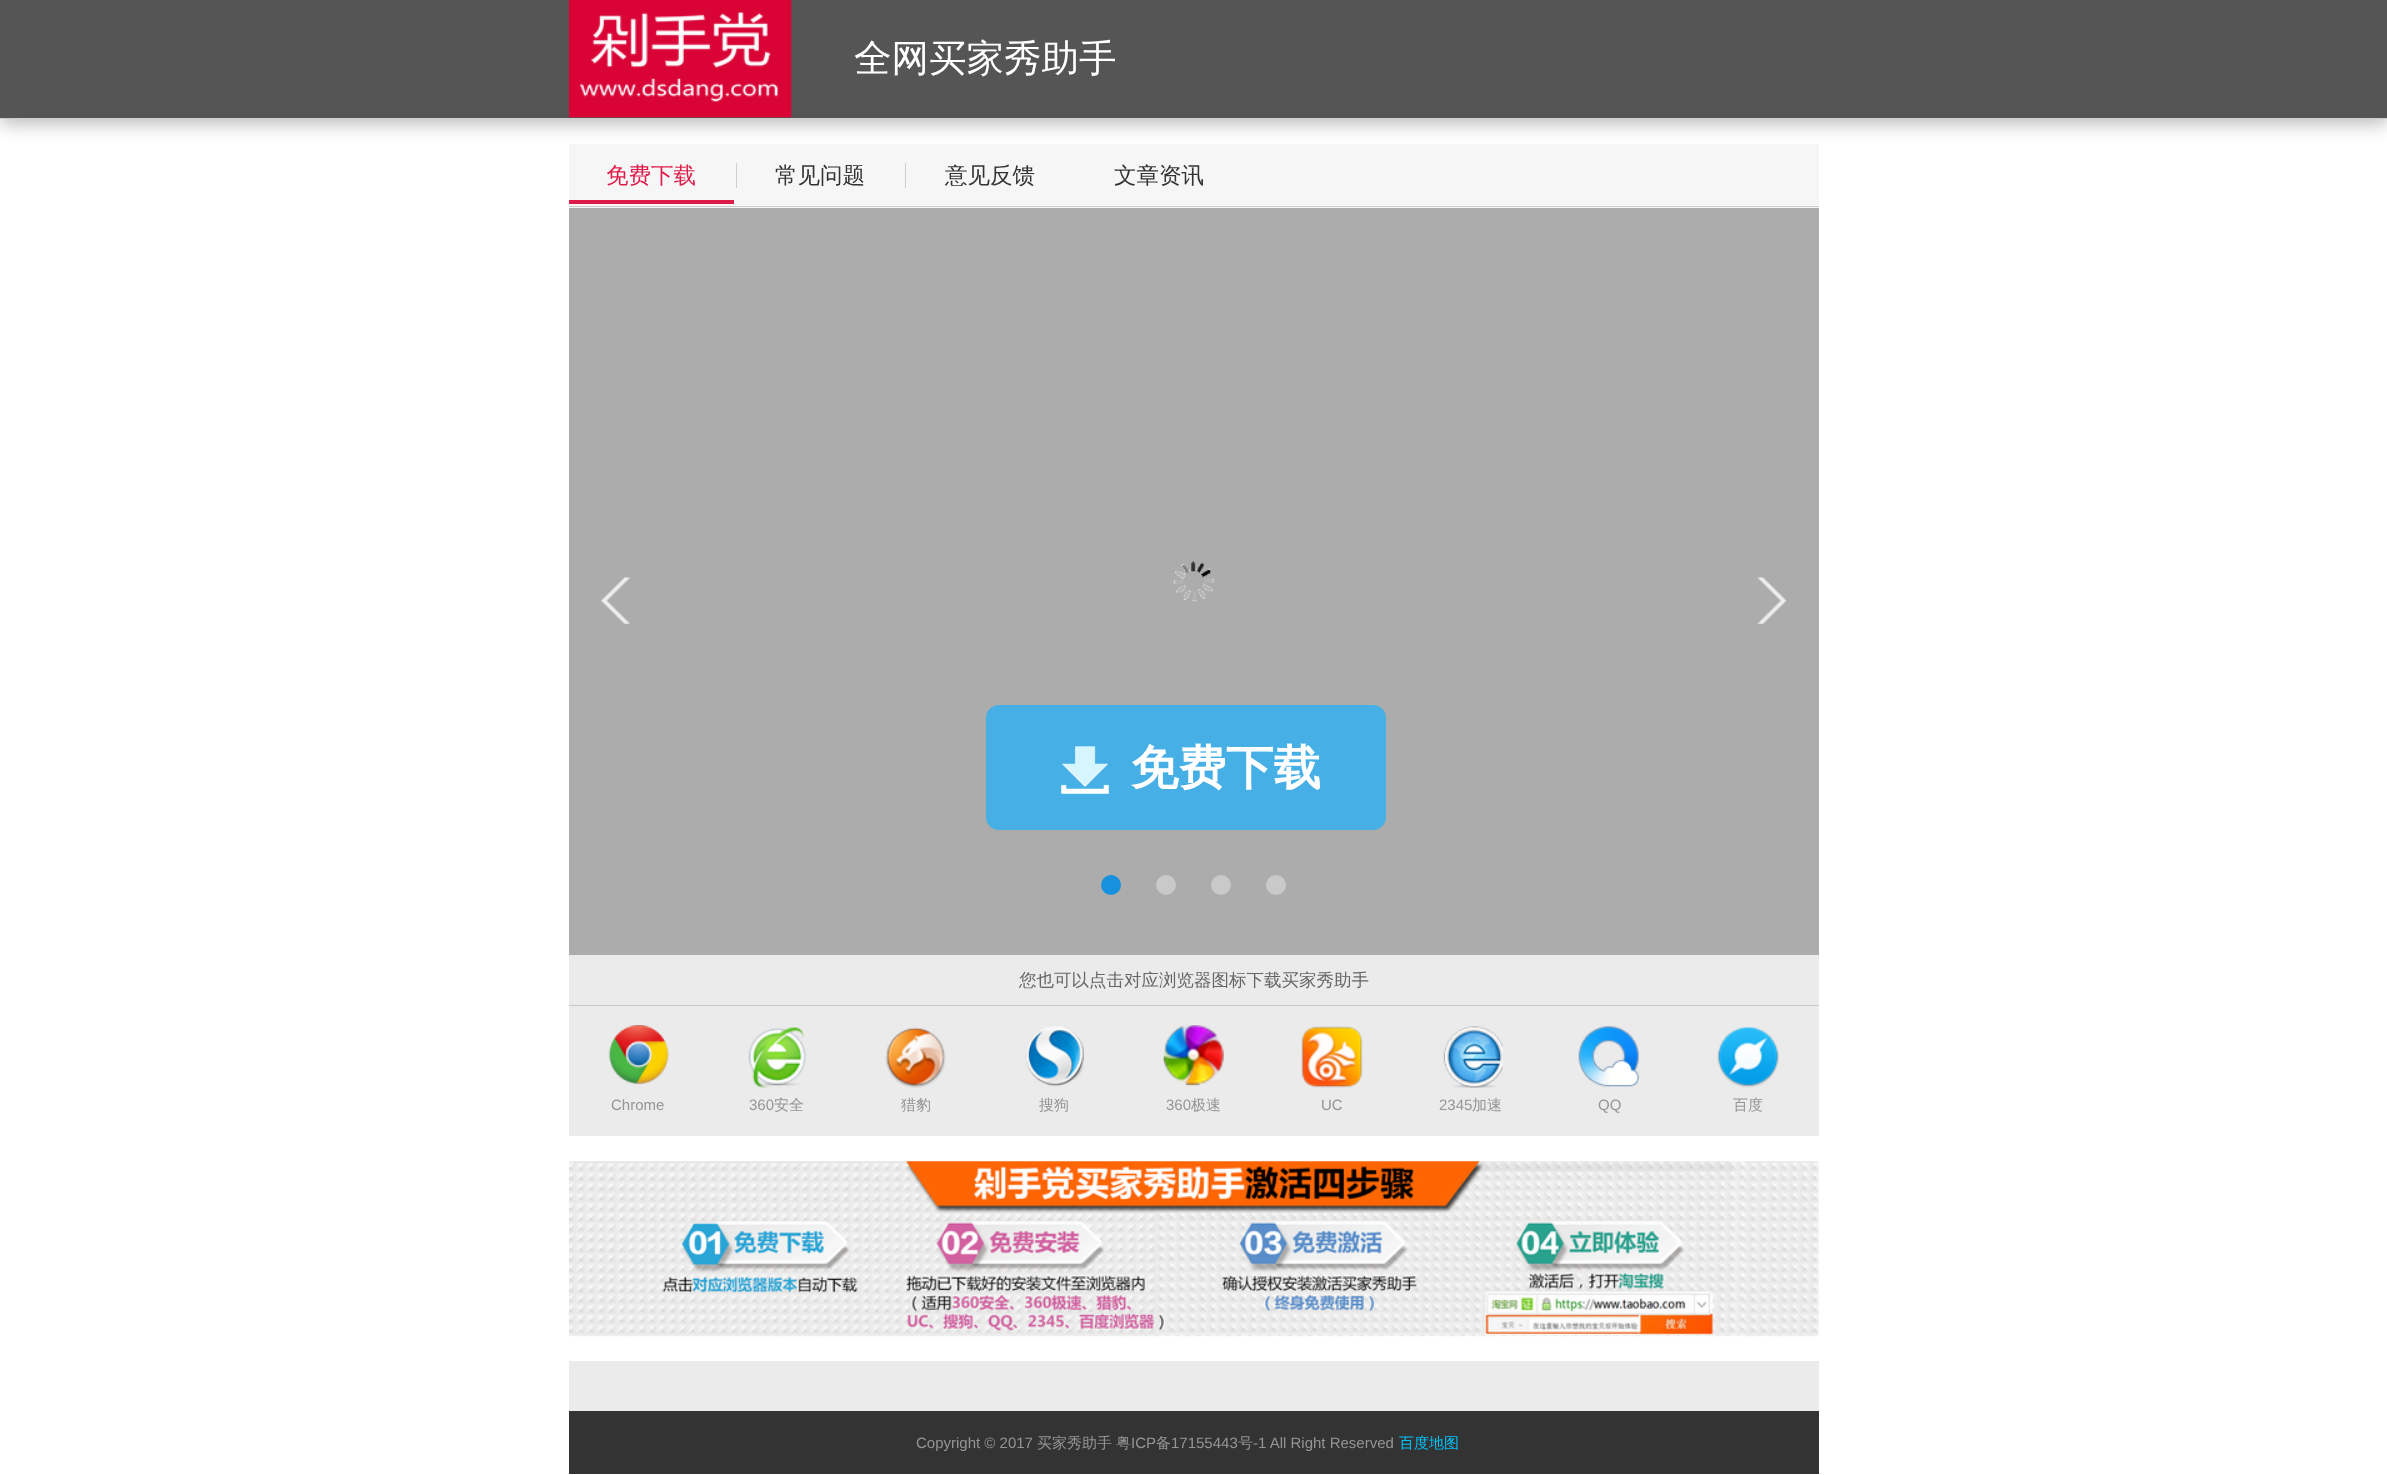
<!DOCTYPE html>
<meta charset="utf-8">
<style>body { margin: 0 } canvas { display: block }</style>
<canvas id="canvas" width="2387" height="1475"></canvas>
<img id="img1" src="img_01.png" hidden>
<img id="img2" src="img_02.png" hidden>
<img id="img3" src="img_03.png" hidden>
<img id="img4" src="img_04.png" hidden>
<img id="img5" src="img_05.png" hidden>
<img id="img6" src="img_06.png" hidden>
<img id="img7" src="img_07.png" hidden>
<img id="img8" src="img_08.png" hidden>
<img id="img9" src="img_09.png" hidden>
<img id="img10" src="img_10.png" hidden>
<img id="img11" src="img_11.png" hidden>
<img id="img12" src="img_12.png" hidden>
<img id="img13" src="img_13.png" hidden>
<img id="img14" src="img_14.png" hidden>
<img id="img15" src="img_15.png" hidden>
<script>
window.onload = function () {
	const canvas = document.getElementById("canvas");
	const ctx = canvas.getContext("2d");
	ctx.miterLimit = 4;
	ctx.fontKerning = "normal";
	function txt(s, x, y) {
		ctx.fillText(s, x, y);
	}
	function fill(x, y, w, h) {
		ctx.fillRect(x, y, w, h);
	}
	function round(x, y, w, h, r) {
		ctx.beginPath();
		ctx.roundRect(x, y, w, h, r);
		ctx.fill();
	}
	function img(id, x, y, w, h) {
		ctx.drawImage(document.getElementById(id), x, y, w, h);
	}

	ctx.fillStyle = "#FFFFFF";
	fill(0, 0, 2387, 1475);
	ctx.fillStyle = "#BBBBBB";
	ctx.filter = "blur(9px)";
	ctx.beginPath();
	ctx.rect(0, 5, 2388, 119);
	ctx.fill();
	ctx.filter = "none";
	ctx.fillStyle = "#555555";
	fill(0, 0, 2387, 118);
	ctx.fillStyle = "#CCCCCC";
	fill(0, 118, 2387, 1);
	img("img1", 568, 0, 224, 118);
	ctx.fillStyle = "#F6F6F6";
	fill(569, 144, 1250, 64);
	ctx.fillStyle = "#CCCCCC";
	fill(569, 206, 1250, 1);
	ctx.fillStyle = "#DD1C4A";
	fill(569, 200, 165, 4);
	ctx.fillStyle = "#CECECE";
	fill(736, 163, 1, 25);
	fill(905, 163, 1, 25);
	ctx.fillStyle = "#EBEBEB";
	fill(569, 955, 1250, 456);
	ctx.fillStyle = "#ACACAC";
	fill(569, 208, 1250, 747);
	img("img2", 601, 577, 29, 47);
	img("img3", 1173, 561, 41, 41);
	img("img4", 1757, 577, 30, 47);
	ctx.fillStyle = "#46B0E6";
	round(986, 705, 400, 125, 13);
	img("img5", 1061, 746, 48, 48);
	ctx.fillStyle = "#1790DD";
	ctx.beginPath();
	ctx.arc(1111, 885, 10, 0, Math.PI * 2);
	ctx.fill();
	ctx.fillStyle = "#C9C9C9";
	ctx.beginPath();
	ctx.arc(1166, 885, 10, 0, Math.PI * 2);
	ctx.fill();
	ctx.beginPath();
	ctx.arc(1221, 885, 10, 0, Math.PI * 2);
	ctx.fill();
	ctx.beginPath();
	ctx.arc(1276, 885, 10, 0, Math.PI * 2);
	ctx.fill();
	ctx.fillStyle = "#C8C8C8";
	fill(569, 1005, 1250, 1);
	img("img6", 608, 1025, 61, 60);
	img("img7", 748, 1027, 58, 61);
	img("img8", 885, 1027, 61, 61);
	img("img9", 1025, 1026, 59, 61);
	img("img10", 1163, 1025, 61, 61);
	img("img11", 1301, 1026, 62, 62);
	img("img12", 1443, 1026, 60, 62);
	img("img13", 1578, 1026, 61, 61);
	img("img14", 1717, 1027, 62, 61);
	ctx.fillStyle = "#FFFFFF";
	fill(569, 1136, 1250, 225);
	img("img15", 569, 1161, 1250, 176);
	ctx.fillStyle = "#333333";
	fill(569, 1411, 1250, 63);
	ctx.font = "500 37.5px WenQuanYi Zen Hei";
	ctx.fillStyle = "#FFFFFF";
	txt("全网买家秀助手", 854, 71);
	ctx.font = "500 22.5px WenQuanYi Zen Hei";
	ctx.fillStyle = "#DD1C4A";
	txt("免费下载", 606, 183);
	ctx.fillStyle = "#333333";
	txt("常见问题", 775, 183);
	txt("意见反馈", 945, 183);
	txt("文章资讯", 1114, 183);
	ctx.font = "bold 47.5px WenQuanYi Zen Hei";
	ctx.fillStyle = "#FFFFFF";
	txt("免费下载", 1131, 784);
	ctx.font = "500 17.5px WenQuanYi Zen Hei";
	ctx.fillStyle = "#666666";
	txt("您也可以点击对应浏览器图标下载买家秀助手", 1019, 986);
	ctx.font = "15px Liberation Sans";
	ctx.fillStyle = "#959595";
	txt("Chrome", 611, 1110);
	txt("360", 749, 1110);
	ctx.font = "500 15px WenQuanYi Zen Hei";
	txt("安全", 774, 1110);
	txt("猎豹", 901, 1110);
	txt("搜狗", 1039, 1110);
	ctx.font = "15px Liberation Sans";
	txt("360", 1166, 1110);
	ctx.font = "500 15px WenQuanYi Zen Hei";
	txt("极速", 1191, 1110);
	ctx.font = "15px Liberation Sans";
	txt("UC", 1321, 1110);
	txt("2345", 1439, 1110);
	ctx.font = "500 15px WenQuanYi Zen Hei";
	txt("加速", 1472, 1110);
	ctx.font = "15px Liberation Sans";
	txt("QQ", 1598, 1110);
	ctx.font = "500 15px WenQuanYi Zen Hei";
	txt("百度", 1733, 1110);
	ctx.font = "15px Liberation Sans";
	txt("Copyright © 2017", 916, 1448);
	ctx.font = "500 15px WenQuanYi Zen Hei";
	txt("买家秀助手", 1037, 1448);
	txt("粤", 1116, 1448);
	ctx.font = "15px Liberation Sans";
	txt("ICP", 1131, 1448);
	ctx.font = "500 15px WenQuanYi Zen Hei";
	txt("备", 1156, 1448);
	ctx.font = "15px Liberation Sans";
	txt("17155443", 1171, 1448);
	ctx.font = "500 15px WenQuanYi Zen Hei";
	txt("号", 1238, 1448);
	ctx.font = "15px Liberation Sans";
	txt("-1 All Right Reserved", 1253, 1448);
	ctx.font = "500 15px WenQuanYi Zen Hei";
	ctx.fillStyle = "#00C4FA";
	txt("百度地图", 1399, 1448);
};
</script>
